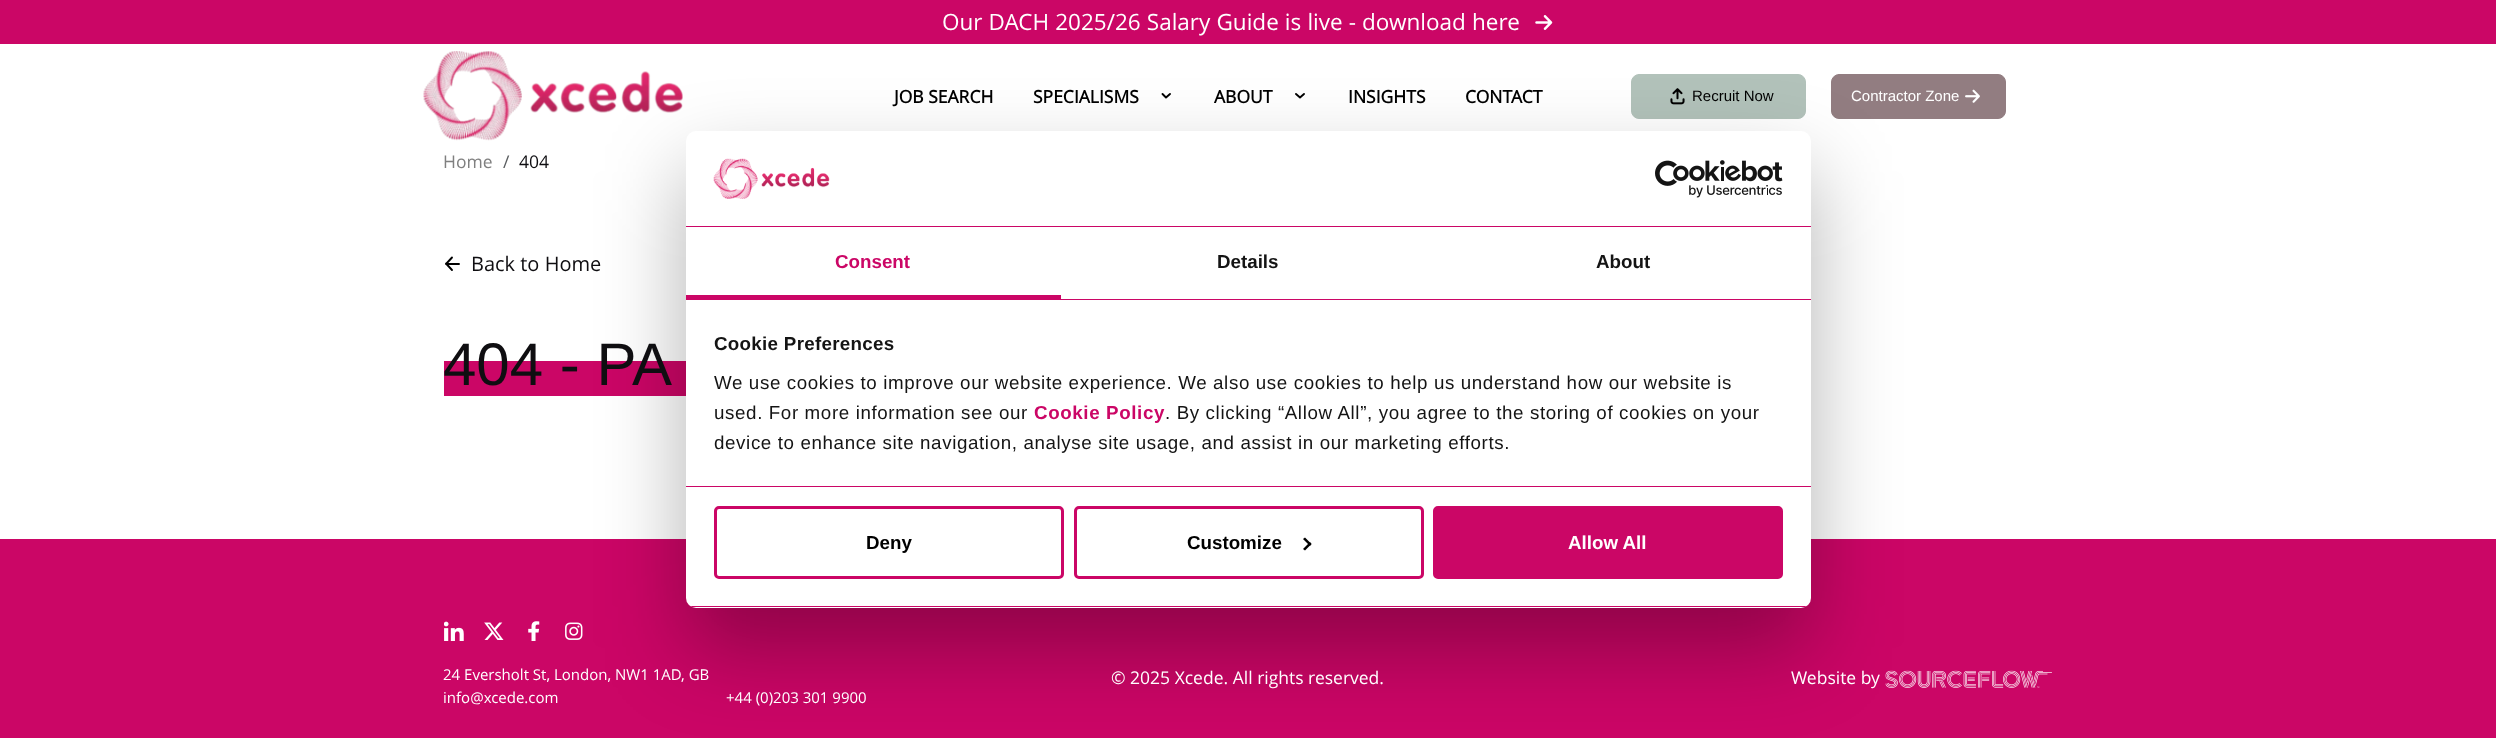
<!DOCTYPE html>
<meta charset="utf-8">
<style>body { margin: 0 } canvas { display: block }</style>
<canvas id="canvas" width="2496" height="738"></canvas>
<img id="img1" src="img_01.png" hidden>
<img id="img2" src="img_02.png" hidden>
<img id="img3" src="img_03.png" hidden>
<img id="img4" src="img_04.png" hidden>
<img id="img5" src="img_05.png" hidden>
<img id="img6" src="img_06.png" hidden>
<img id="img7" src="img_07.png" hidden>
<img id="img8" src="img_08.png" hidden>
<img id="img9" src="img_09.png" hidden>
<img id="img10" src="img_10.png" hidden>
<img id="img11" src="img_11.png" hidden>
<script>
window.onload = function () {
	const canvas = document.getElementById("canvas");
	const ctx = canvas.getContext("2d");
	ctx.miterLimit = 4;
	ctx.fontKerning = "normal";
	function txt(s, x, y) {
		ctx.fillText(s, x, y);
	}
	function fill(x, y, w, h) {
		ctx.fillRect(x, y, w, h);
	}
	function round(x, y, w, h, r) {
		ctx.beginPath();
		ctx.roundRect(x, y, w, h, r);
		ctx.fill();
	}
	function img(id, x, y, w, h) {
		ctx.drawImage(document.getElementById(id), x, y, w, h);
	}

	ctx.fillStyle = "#FFFFFF";
	fill(0, 0, 2496, 738);
	ctx.fillStyle = "#CB0666";
	fill(0, 0, 2496, 44);
	img("img1", 1535, 15, 18, 15);
	img("img2", 423, 51, 260, 90);
	ctx.beginPath();
	ctx.moveTo(1162.5, 94);
	ctx.lineTo(1166, 97.5);
	ctx.lineTo(1170, 94);
	ctx.strokeStyle = "#000000";
	ctx.lineWidth = 1.9;
	ctx.lineCap = "round";
	ctx.lineJoin = "round";
	ctx.stroke();
	ctx.beginPath();
	ctx.moveTo(1296, 94);
	ctx.lineTo(1300, 97.5);
	ctx.lineTo(1304, 94);
	ctx.stroke();
	ctx.fillStyle = "#B2C2BA";
	ctx.beginPath();
	ctx.roundRect(1631.5, 74.5, 174, 44, 7.5);
	ctx.fill();
	ctx.strokeStyle = "#B2C2BA";
	ctx.lineWidth = 1;
	ctx.lineJoin = "miter";
	ctx.stroke();
	img("img3", 1670, 88, 15, 17);
	ctx.fillStyle = "#927D81";
	ctx.beginPath();
	ctx.roundRect(1831.5, 74.5, 174, 44, 7.5);
	ctx.fill();
	ctx.strokeStyle = "#927D81";
	ctx.stroke();
	img("img4", 1965, 89, 15, 14);
	ctx.beginPath();
	ctx.moveTo(459, 264);
	ctx.lineTo(446, 264);
	ctx.moveTo(446, 264);
	ctx.lineTo(452, 257.5);
	ctx.moveTo(446, 263.5);
	ctx.lineTo(452, 270);
	ctx.strokeStyle = "#000000";
	ctx.lineWidth = 1.9;
	ctx.lineJoin = "round";
	ctx.stroke();
	ctx.fillStyle = "#CB0666";
	fill(444, 361, 242, 35);
	fill(0, 539, 2496, 199);
	img("img5", 444, 621, 20, 20);
	img("img6", 484, 622, 20, 18);
	img("img7", 528, 621, 12, 20);
	img("img8", 565, 622, 18, 18);
	img("img9", 1885, 670, 167, 18);
	ctx.fillStyle = "rgba(0, 0, 0, 0.3)";
	ctx.filter = "blur(42.5px)";
	ctx.beginPath();
	ctx.roundRect(686, 171, 1125, 477, 10);
	ctx.fill();
	ctx.filter = "none";
	ctx.fillStyle = "#FFFFFF";
	round(686, 131, 1125, 477, 10);
	ctx.fillStyle = "#CB0666";
	fill(686, 226, 1125, 1);
	img("img10", 713, 158, 117, 41);
	img("img11", 1655, 160, 128, 38);
	fill(686, 299, 1125, 1);
	fill(686, 295, 375, 4);
	fill(686, 486, 1125, 1);
	ctx.save();
	ctx.beginPath();
	ctx.roundRect(686, 131, 1125, 477, 10);
	ctx.clip();
	fill(686, 606, 1125, 1);
	ctx.restore();
	ctx.beginPath();
	ctx.roundRect(715.5, 507.5, 347, 70, 3.5);
	ctx.strokeStyle = "#CB0666";
	ctx.lineWidth = 3;
	ctx.lineJoin = "miter";
	ctx.stroke();
	ctx.beginPath();
	ctx.roundRect(1075.5, 507.5, 347, 70, 3.5);
	ctx.stroke();
	ctx.fillStyle = "#000000";
	ctx.beginPath();
	ctx.moveTo(1305, 537.5);
	ctx.lineTo(1311.5, 544);
	ctx.lineTo(1310, 546);
	ctx.lineTo(1303, 539);
	ctx.closePath();
	ctx.fill();
	ctx.beginPath();
	ctx.moveTo(1310, 542);
	ctx.lineTo(1311.5, 544);
	ctx.lineTo(1305, 550.5);
	ctx.lineTo(1303, 549);
	ctx.closePath();
	ctx.fill();
	ctx.fillStyle = "#CB0666";
	ctx.beginPath();
	ctx.roundRect(1434.5, 507.5, 347, 70, 3.5);
	ctx.fill();
	ctx.stroke();
	ctx.wordSpacing = "0.25px";
	ctx.font = "22.5px Open Sans";
	ctx.fillStyle = "#FFFFFF";
	txt("Our DACH 2025/26 Salary Guide is live - download here", 942, 30);
	ctx.wordSpacing = "0px";
	ctx.font = "bold 17.5px Open Sans";
	ctx.fillStyle = "#000000";
	txt("JOB SEARCH", 894, 103);
	txt("SPECIALISMS", 1033, 103);
	txt("ABOUT", 1214, 103);
	txt("INSIGHTS", 1348, 103);
	txt("CONTACT", 1465, 103);
	ctx.font = "15px Liberation Sans";
	txt("Recruit Now", 1692, 101);
	ctx.fillStyle = "#FFFFFF";
	txt("Contractor Zone", 1851, 101);
	ctx.font = "17.5px Open Sans";
	ctx.fillStyle = "#808080";
	txt("Home", 443, 168);
	ctx.fillStyle = "#595C5F";
	txt("/", 503, 168);
	ctx.fillStyle = "#0F0E11";
	txt("404", 519, 168);
	ctx.font = "20px Open Sans";
	txt("Back to Home", 471, 271);
	ctx.font = "60px Liberation Sans";
	txt("404 - PA", 443, 385);
	ctx.font = "15px Open Sans";
	ctx.fillStyle = "#FFFFFF";
	txt("24 Eversholt St, London, NW1 1AD, GB", 443, 680);
	txt("info@xcede.com", 443, 703);
	txt("+44 (0)203 301 9900", 726, 703);
	ctx.font = "17.5px Open Sans";
	txt("© 2025 Xcede. All rights reserved.", 1111, 684);
	txt("Website by", 1791, 684);
	ctx.font = "bold 18.75px Liberation Sans";
	ctx.fillStyle = "#CB0666";
	txt("Consent", 835, 268);
	ctx.fillStyle = "#141414";
	txt("Details", 1217, 268);
	txt("About", 1596, 268);
	ctx.letterSpacing = "0.3px";
	txt("Cookie Preferences", 714, 350);
	ctx.letterSpacing = "0.62px";
	ctx.font = "18.75px Liberation Sans";
	txt("We use cookies to improve our website experience. We also use cookies to help us understand how our website is", 714, 389);
	txt("used. For more information see our", 714, 419);
	ctx.font = "bold 18.75px Liberation Sans";
	ctx.fillStyle = "#CB0666";
	txt("Cookie Policy", 1034, 419);
	ctx.font = "18.75px Liberation Sans";
	ctx.fillStyle = "#141414";
	txt(". By clicking “Allow All”, you agree to the storing of cookies on your", 1165, 419);
	txt("device to enhance site navigation, analyse site usage, and assist in our marketing efforts.", 714, 449);
	ctx.letterSpacing = "0px";
	ctx.font = "bold 18.75px Liberation Sans";
	ctx.fillStyle = "#000000";
	txt("Deny", 866, 549);
	txt("Customize", 1187, 549);
	ctx.fillStyle = "#FFFFFF";
	txt("Allow All", 1568, 549);
};
</script>
